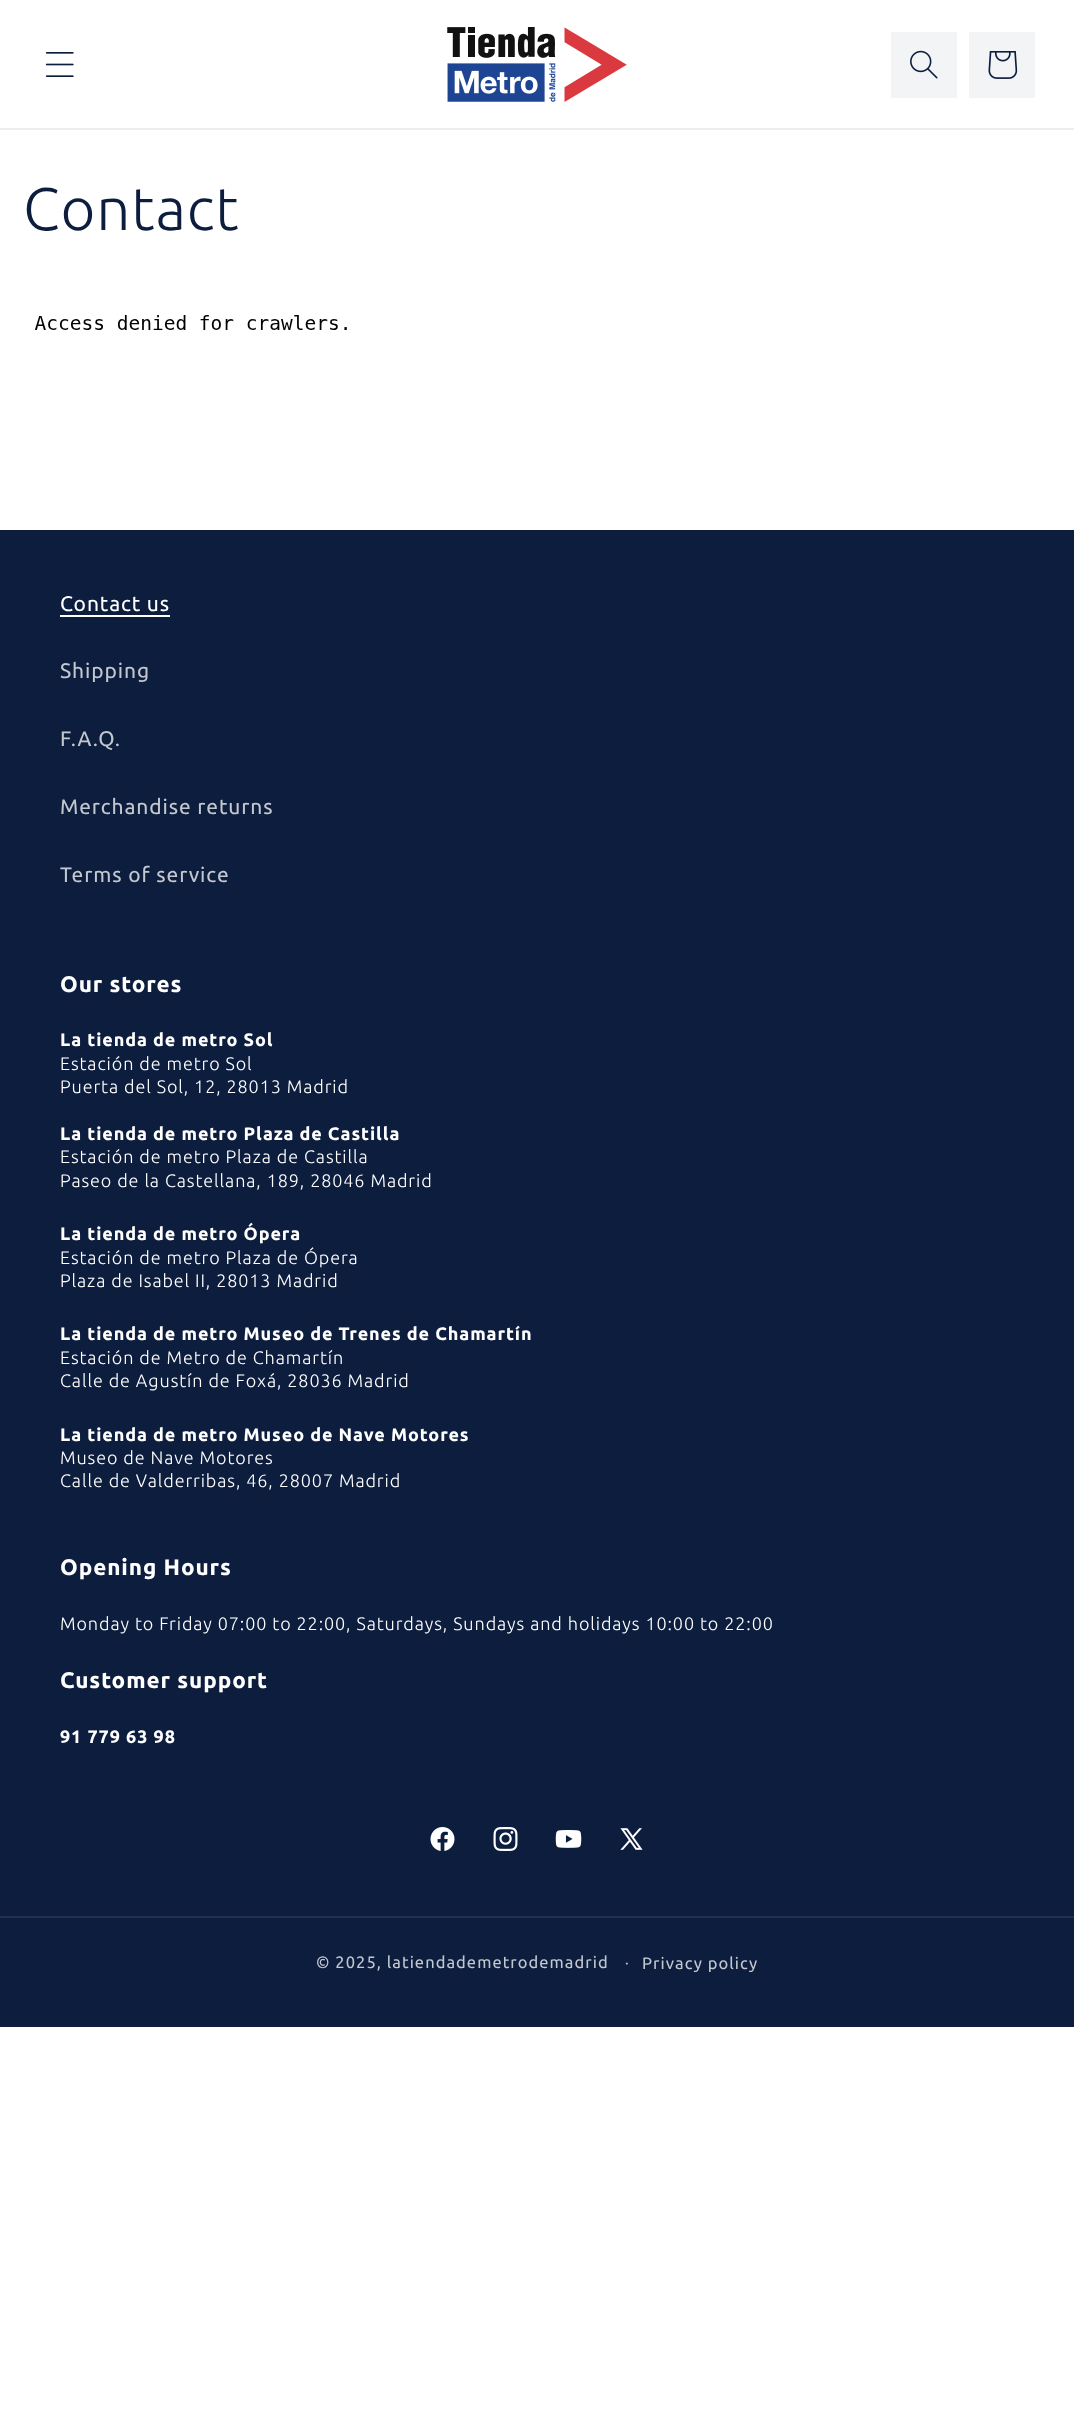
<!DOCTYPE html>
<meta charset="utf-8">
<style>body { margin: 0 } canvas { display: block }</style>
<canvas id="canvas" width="1074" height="2414"></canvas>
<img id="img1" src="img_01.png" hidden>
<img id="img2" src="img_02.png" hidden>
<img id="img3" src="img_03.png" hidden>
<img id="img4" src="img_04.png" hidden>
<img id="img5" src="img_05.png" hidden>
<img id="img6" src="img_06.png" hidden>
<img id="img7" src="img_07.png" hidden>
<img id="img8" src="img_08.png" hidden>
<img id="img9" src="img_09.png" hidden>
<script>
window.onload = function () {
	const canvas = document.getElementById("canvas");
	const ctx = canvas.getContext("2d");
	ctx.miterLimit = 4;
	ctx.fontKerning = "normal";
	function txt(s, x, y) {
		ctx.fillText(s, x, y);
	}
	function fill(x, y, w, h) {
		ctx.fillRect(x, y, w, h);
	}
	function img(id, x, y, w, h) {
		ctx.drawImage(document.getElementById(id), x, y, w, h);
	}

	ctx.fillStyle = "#FFFFFF";
	fill(0, 0, 1074, 2414);
	ctx.fillStyle = "#ECEDF0";
	fill(0, 128, 1074, 2);
	img("img1", 45, 52, 29, 25);
	img("img2", 447, 27, 180, 75);
	ctx.fillStyle = "#F3F4F5";
	fill(891, 32, 66, 66);
	img("img3", 910, 50, 28, 29);
	fill(969, 32, 66, 66);
	img("img4", 988, 51, 30, 28);
	img("img5", 34, 315, 313, 15);
	ctx.fillStyle = "#0D1D3E";
	fill(0, 530, 1074, 1497);
	ctx.fillStyle = "#FFFFFF";
	fill(60, 615, 110, 2);
	img("img6", 430, 1827, 25, 24);
	img("img7", 493, 1827, 25, 24);
	img("img8", 555, 1830, 27, 18);
	img("img9", 620, 1828, 23, 22);
	ctx.fillStyle = "#202F4D";
	fill(0, 1916, 1074, 2);
	ctx.letterSpacing = "0.9px";
	ctx.font = "300 60px Ubuntu";
	ctx.fillStyle = "#0D1D3E";
	txt("Contact", 23, 230);
	ctx.font = "21px Ubuntu";
	ctx.fillStyle = "#FFFFFF";
	txt("Contact us", 60, 611);
	ctx.fillStyle = "#C3C7CF";
	txt("Shipping", 60, 678);
	txt("F.A.Q.", 60, 746);
	txt("Merchandise returns", 60, 814);
	txt("Terms of service", 60, 882);
	ctx.font = "bold 22.5px Ubuntu";
	ctx.fillStyle = "#FFFFFF";
	txt("Our stores", 60, 992);
	ctx.font = "bold 18px Ubuntu";
	txt("La tienda de metro Sol", 60, 1046);
	ctx.font = "300 18px Ubuntu";
	txt("Estación de metro Sol", 60, 1070);
	txt("Puerta del Sol, 12, 28013 Madrid", 60, 1093);
	ctx.font = "bold 18px Ubuntu";
	txt("La tienda de metro Plaza de Castilla", 60, 1140);
	ctx.font = "300 18px Ubuntu";
	txt("Estación de metro Plaza de Castilla", 60, 1163);
	txt("Paseo de la Castellana, 189, 28046 Madrid", 60, 1187);
	ctx.font = "bold 18px Ubuntu";
	txt("La tienda de metro Ópera", 60, 1240);
	ctx.font = "300 18px Ubuntu";
	txt("Estación de metro Plaza de Ópera", 60, 1264);
	txt("Plaza de Isabel II, 28013 Madrid", 60, 1287);
	ctx.font = "bold 18px Ubuntu";
	txt("La tienda de metro Museo de Trenes de Chamartín", 60, 1340);
	ctx.font = "300 18px Ubuntu";
	txt("Estación de Metro de Chamartín", 60, 1364);
	txt("Calle de Agustín de Foxá, 28036 Madrid", 60, 1387);
	ctx.font = "bold 18px Ubuntu";
	txt("La tienda de metro Museo de Nave Motores", 60, 1441);
	ctx.font = "300 18px Ubuntu";
	txt("Museo de Nave Motores", 60, 1464);
	txt("Calle de Valderribas, 46, 28007 Madrid", 60, 1487);
	ctx.font = "bold 22.5px Ubuntu";
	txt("Opening Hours", 60, 1575);
	ctx.font = "300 18px Ubuntu";
	txt("Monday to Friday 07:00 to 22:00, Saturdays, Sundays and holidays 10:00 to 22:00", 60, 1630);
	ctx.font = "bold 22.5px Ubuntu";
	txt("Customer support", 60, 1688);
	ctx.font = "bold 18px Ubuntu";
	txt("91 779 63 98", 60, 1743);
	ctx.letterSpacing = "1.05px";
	ctx.font = "16.5px Ubuntu";
	ctx.fillStyle = "#C3C7CF";
	txt("© 2025, latiendademetrodemadrid", 316, 1968);
	ctx.font = "15px Ubuntu";
	txt("·", 625, 1968);
	ctx.font = "16.5px Ubuntu";
	txt("Privacy policy", 642, 1969);
};
</script>
